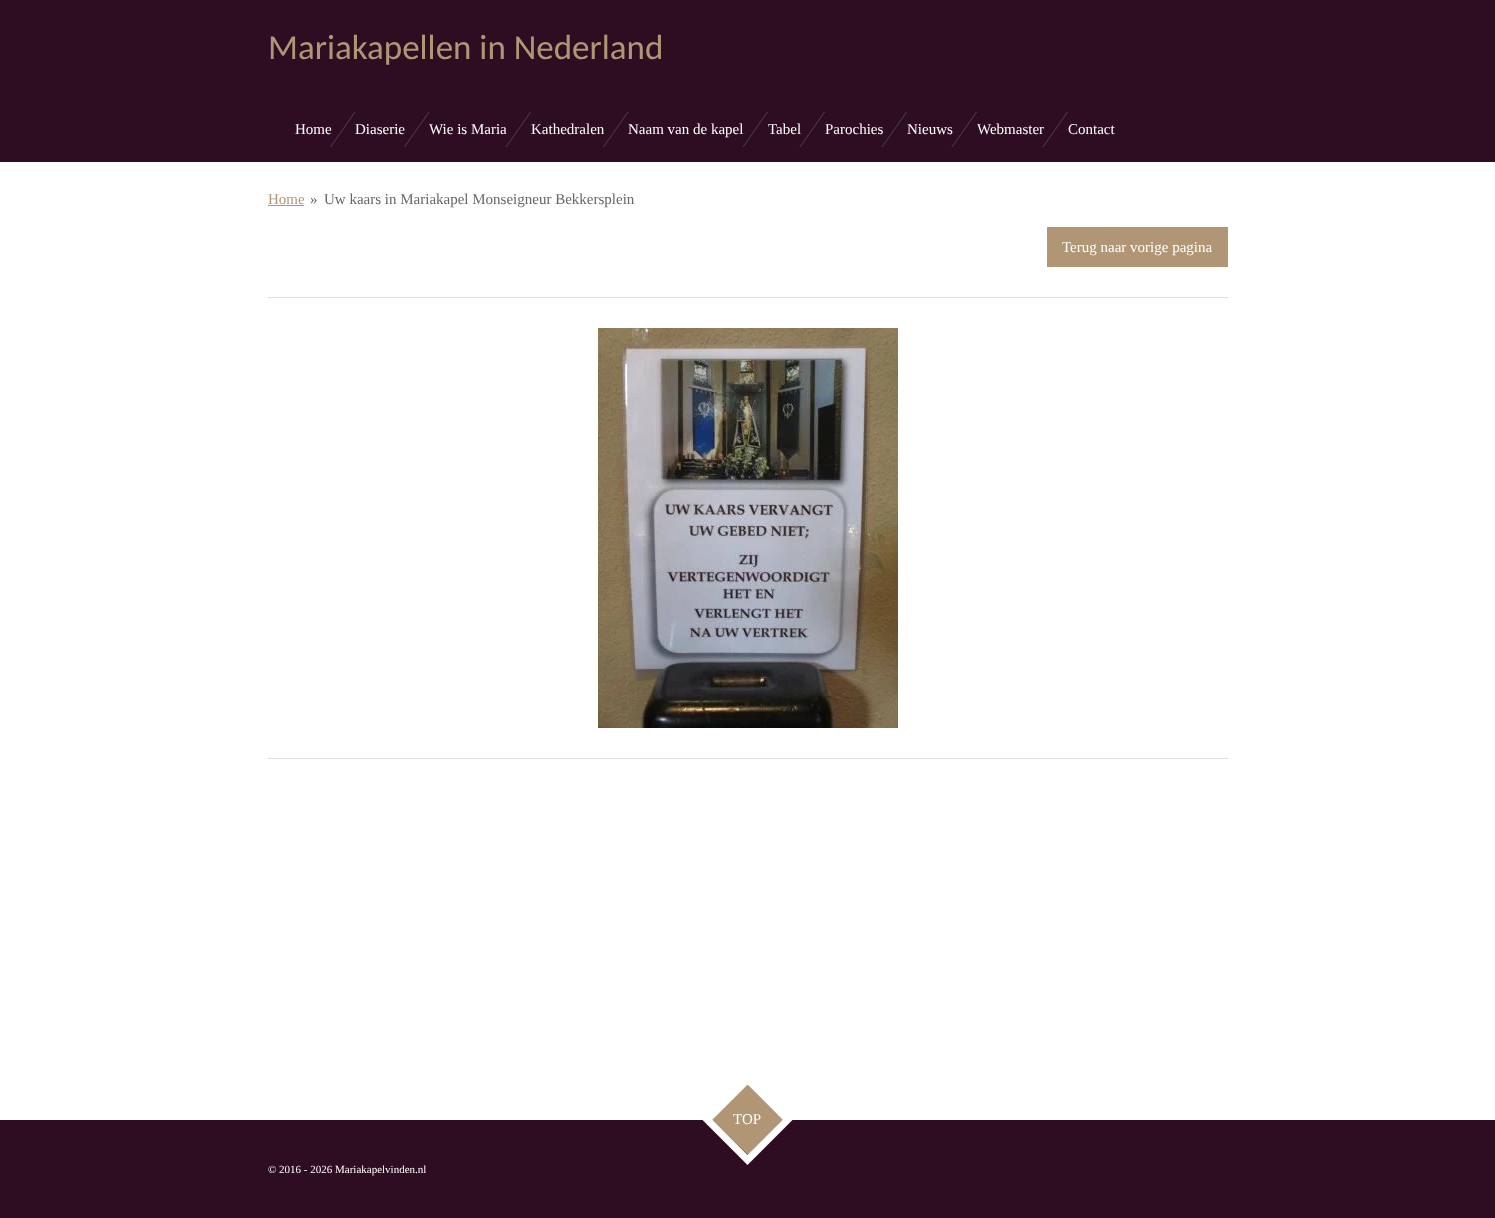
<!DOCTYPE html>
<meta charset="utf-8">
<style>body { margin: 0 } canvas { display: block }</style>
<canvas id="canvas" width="1495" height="1218"></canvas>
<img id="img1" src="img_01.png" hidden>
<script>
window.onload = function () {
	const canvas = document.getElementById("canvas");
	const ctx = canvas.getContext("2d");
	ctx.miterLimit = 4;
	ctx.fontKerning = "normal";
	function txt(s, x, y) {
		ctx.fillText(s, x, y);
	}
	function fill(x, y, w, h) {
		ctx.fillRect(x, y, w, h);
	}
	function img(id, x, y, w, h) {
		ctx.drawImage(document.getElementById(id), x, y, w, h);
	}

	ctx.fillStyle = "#FFFFFF";
	fill(0, 0, 1495, 1218);
	ctx.fillStyle = "#2E0D23";
	fill(0, 0, 1495, 162);
	ctx.fillStyle = "#583D4F";
	ctx.beginPath();
	ctx.moveTo(354.5, 112);
	ctx.lineTo(355.5, 112);
	ctx.lineTo(331, 147);
	ctx.lineTo(330, 147);
	ctx.closePath();
	ctx.fill();
	ctx.beginPath();
	ctx.moveTo(428.5, 112);
	ctx.lineTo(429.5, 112);
	ctx.lineTo(405, 147);
	ctx.lineTo(404, 147);
	ctx.closePath();
	ctx.fill();
	ctx.beginPath();
	ctx.moveTo(530, 112);
	ctx.lineTo(531, 112);
	ctx.lineTo(506.5, 147);
	ctx.lineTo(505.5, 147);
	ctx.closePath();
	ctx.fill();
	ctx.beginPath();
	ctx.moveTo(627.5, 112);
	ctx.lineTo(628.5, 112);
	ctx.lineTo(604, 147);
	ctx.lineTo(603, 147);
	ctx.closePath();
	ctx.fill();
	ctx.beginPath();
	ctx.moveTo(767, 112);
	ctx.lineTo(768, 112);
	ctx.lineTo(743.5, 147);
	ctx.lineTo(742.5, 147);
	ctx.closePath();
	ctx.fill();
	ctx.beginPath();
	ctx.moveTo(824, 112);
	ctx.lineTo(825, 112);
	ctx.lineTo(800.5, 147);
	ctx.lineTo(799.5, 147);
	ctx.closePath();
	ctx.fill();
	ctx.beginPath();
	ctx.moveTo(906, 112);
	ctx.lineTo(907, 112);
	ctx.lineTo(882.5, 147);
	ctx.lineTo(881.5, 147);
	ctx.closePath();
	ctx.fill();
	ctx.beginPath();
	ctx.moveTo(976, 112);
	ctx.lineTo(977, 112);
	ctx.lineTo(952.5, 147);
	ctx.lineTo(951.5, 147);
	ctx.closePath();
	ctx.fill();
	ctx.beginPath();
	ctx.moveTo(1067, 112);
	ctx.lineTo(1068, 112);
	ctx.lineTo(1043.5, 147);
	ctx.lineTo(1042.5, 147);
	ctx.closePath();
	ctx.fill();
	ctx.fillStyle = "#B19676";
	fill(268, 205, 36, 1);
	fill(1047, 227, 181, 40);
	ctx.fillStyle = "#E0E0E0";
	fill(268, 297, 960, 1);
	img("img1", 598, 328, 300, 400);
	fill(268, 758, 960, 1);
	ctx.fillStyle = "#2E0D23";
	fill(0, 1120, 1495, 98);
	ctx.fillStyle = "#B19676";
	ctx.beginPath();
	ctx.moveTo(748, 1084);
	ctx.lineTo(783, 1120);
	ctx.lineTo(748, 1155);
	ctx.lineTo(712, 1120);
	ctx.closePath();
	ctx.fill();
	ctx.beginPath();
	ctx.moveTo(747.5, 1079.5);
	ctx.lineTo(788, 1119.5);
	ctx.lineTo(747.5, 1160);
	ctx.lineTo(707, 1119.5);
	ctx.closePath();
	ctx.strokeStyle = "#FFFFFF";
	ctx.lineWidth = 7;
	ctx.stroke();
	ctx.font = "35px Carlito";
	txt("Mariakapellen in Nederland", 268, 59);
	ctx.font = "15px Liberation Serif";
	ctx.fillStyle = "#FFFFFF";
	txt("Home", 295, 134);
	txt("Diaserie", 355, 134);
	txt("Wie is Maria", 429, 134);
	txt("Kathedralen", 531, 134);
	txt("Naam van de kapel", 628, 134);
	txt("Tabel", 768, 134);
	txt("Parochies", 825, 134);
	txt("Nieuws", 907, 134);
	txt("Webmaster", 977, 134);
	txt("Contact", 1068, 134);
	ctx.fillStyle = "#B19676";
	txt("Home", 268, 204);
	ctx.fillStyle = "#666666";
	txt("»", 310, 204);
	txt("Uw kaars in Mariakapel Monseigneur Bekkersplein", 324, 204);
	ctx.fillStyle = "#FFFFFF";
	txt("Terug naar vorige pagina", 1062, 252);
	txt("TOP", 733, 1124);
	ctx.font = "11px Liberation Serif";
	txt("© 2016 - 2026 Mariakapelvinden.nl", 268, 1173);
};
</script>
